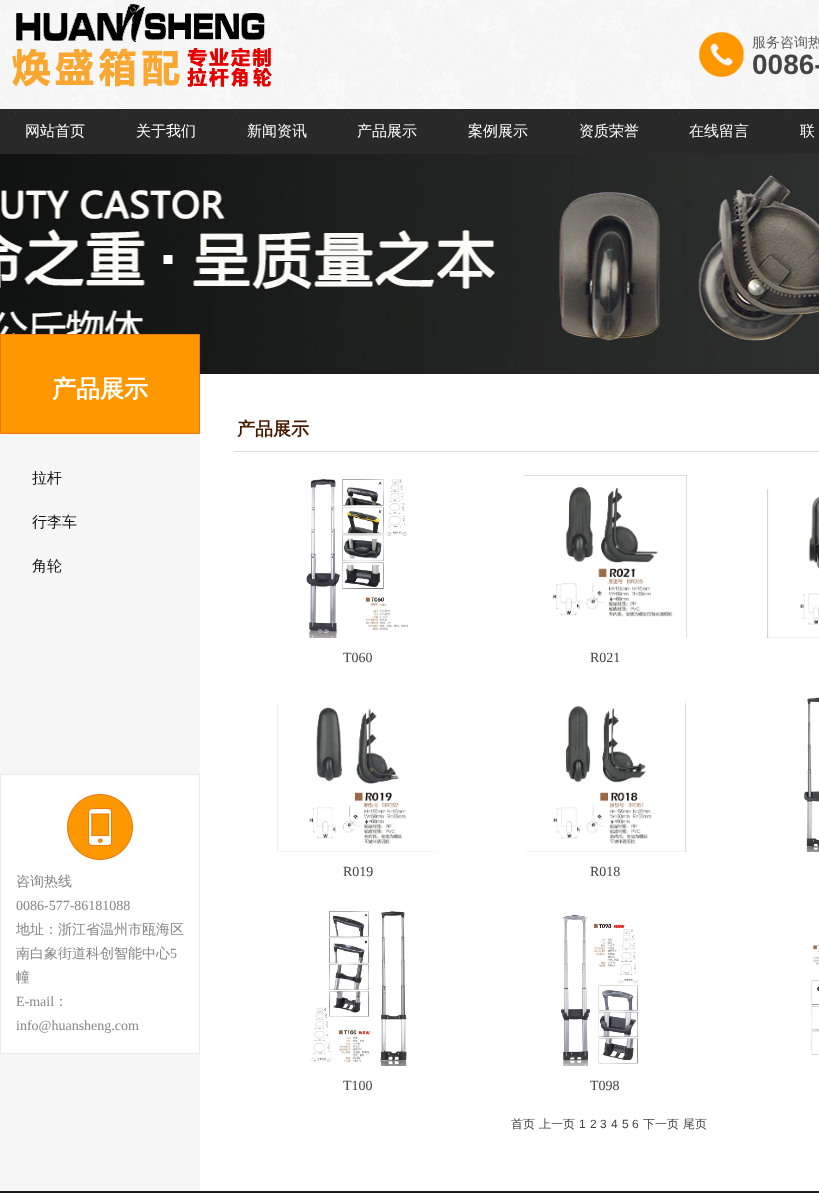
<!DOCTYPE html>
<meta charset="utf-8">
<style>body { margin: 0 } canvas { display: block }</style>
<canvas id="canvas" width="819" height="1193"></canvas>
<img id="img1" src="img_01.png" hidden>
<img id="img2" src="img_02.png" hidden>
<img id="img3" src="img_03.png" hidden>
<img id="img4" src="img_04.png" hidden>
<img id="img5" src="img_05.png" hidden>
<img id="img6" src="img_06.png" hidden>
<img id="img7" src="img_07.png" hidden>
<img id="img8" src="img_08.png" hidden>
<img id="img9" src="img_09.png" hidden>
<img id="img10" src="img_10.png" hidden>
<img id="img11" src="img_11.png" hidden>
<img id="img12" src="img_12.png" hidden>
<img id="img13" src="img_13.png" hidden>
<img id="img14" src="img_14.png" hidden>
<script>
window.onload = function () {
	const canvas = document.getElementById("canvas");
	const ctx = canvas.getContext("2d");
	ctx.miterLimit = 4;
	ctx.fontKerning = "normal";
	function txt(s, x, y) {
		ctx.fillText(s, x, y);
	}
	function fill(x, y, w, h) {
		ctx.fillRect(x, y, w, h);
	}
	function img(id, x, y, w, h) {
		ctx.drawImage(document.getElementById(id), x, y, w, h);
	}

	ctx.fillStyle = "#FFFFFF";
	fill(0, 0, 819, 1193);
	img("img1", 0, 0, 819, 109);
	img("img2", 12, 4, 260, 83);
	img("img3", 699, 32, 45, 45);
	ctx.fillStyle = "#2A2929";
	fill(0, 109, 819, 45);
	ctx.fillStyle = "#4E413C";
	fill(15, 113, 1, 1);
	fill(126, 113, 1, 1);
	fill(236, 113, 1, 1);
	fill(347, 113, 1, 1);
	fill(458, 113, 1, 1);
	fill(568, 113, 1, 1);
	fill(679, 113, 1, 1);
	fill(790, 113, 1, 1);
	img("img4", 0, 154, 819, 220);
	ctx.fillStyle = "#F6F6F6";
	fill(0, 434, 200, 757);
	ctx.fillStyle = "#FF9700";
	ctx.beginPath();
	ctx.rect(0.5, 334.5, 199, 99);
	ctx.fill();
	ctx.strokeStyle = "#E6790F";
	ctx.stroke();
	ctx.fillStyle = "#FFFFFF";
	fill(1, 775, 198, 278);
	img("img5", 67, 794, 66, 66);
	ctx.strokeStyle = "#EAEAEA";
	ctx.strokeRect(0.5, 774.5, 199, 279);
	ctx.fillStyle = "#DDDDDD";
	fill(234, 451, 585, 1);
	img("img6", 767, 488, 52, 150);
	img("img7", 306, 479, 102, 159);
	img("img8", 524, 475, 163, 163);
	img("img9", 804, 697, 15, 155);
	img("img10", 277, 703, 161, 149);
	img("img11", 525, 702, 161, 150);
	img("img12", 811, 945, 8, 110);
	img("img13", 311, 911, 96, 155);
	img("img14", 561, 914, 77, 152);
	ctx.fillStyle = "#1C1C1C";
	fill(0, 1191, 819, 2);
	ctx.font = "500 14px WenQuanYi Zen Hei";
	ctx.fillStyle = "#606060";
	txt("服务咨询热", 752, 47);
	ctx.font = "bold 28px Liberation Sans";
	ctx.fillStyle = "#444444";
	txt("0086-", 752, 74);
	ctx.font = "500 15px WenQuanYi Zen Hei";
	ctx.fillStyle = "#FFFFFF";
	txt("网站首页", 25, 136);
	txt("关于我们", 136, 136);
	txt("新闻资讯", 247, 136);
	txt("产品展示", 357, 136);
	txt("案例展示", 468, 136);
	txt("资质荣誉", 579, 136);
	txt("在线留言", 689, 136);
	txt("联", 800, 136);
	ctx.font = "bold 24px WenQuanYi Zen Hei";
	txt("产品展示", 52, 397);
	ctx.font = "500 15px WenQuanYi Zen Hei";
	ctx.fillStyle = "#131313";
	txt("拉杆", 32, 483);
	txt("行李车", 32, 527);
	txt("角轮", 32, 571);
	ctx.font = "500 14px WenQuanYi Zen Hei";
	ctx.fillStyle = "#868687";
	txt("咨询热线", 16, 886);
	ctx.font = "14px Liberation Serif";
	txt("0086-577-86181088", 16, 910);
	ctx.font = "500 14px WenQuanYi Zen Hei";
	txt("地址：浙江省温州市瓯海区", 16, 934);
	txt("南白象街道科创智能中心", 16, 958);
	ctx.font = "14px Liberation Serif";
	txt("5", 170, 958);
	ctx.font = "500 14px WenQuanYi Zen Hei";
	txt("幢", 16, 982);
	ctx.font = "14px Liberation Serif";
	txt("E-mail", 16, 1006);
	ctx.font = "500 14px WenQuanYi Zen Hei";
	txt("：", 54, 1006);
	ctx.font = "14px Liberation Serif";
	txt("info@huansheng.com", 16, 1030);
	ctx.font = "bold 18px WenQuanYi Zen Hei";
	ctx.fillStyle = "#461D00";
	txt("产品展示", 237, 435);
	ctx.font = "14px Liberation Serif";
	ctx.fillStyle = "#444444";
	txt("T060", 343, 662);
	txt("R021", 590, 662);
	txt("R019", 343, 876);
	txt("R018", 590, 876);
	txt("T100", 343, 1090);
	txt("T098", 590, 1090);
	ctx.font = "500 12px WenQuanYi Zen Hei";
	txt("首页", 511, 1128);
	txt("上一页", 539, 1128);
	ctx.font = "12px Liberation Sans";
	txt("1", 579, 1128);
	txt("2", 590, 1128);
	txt("3", 600, 1128);
	txt("4", 611, 1128);
	txt("5", 622, 1128);
	txt("6", 632, 1128);
	ctx.font = "500 12px WenQuanYi Zen Hei";
	txt("下一页", 643, 1128);
	txt("尾页", 683, 1128);
};
</script>
